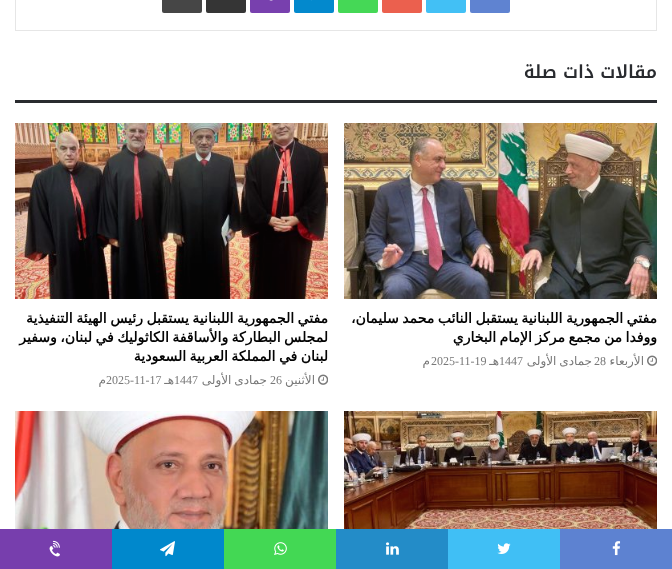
<!DOCTYPE html>
<meta charset="utf-8">
<style>body { margin: 0 } canvas { display: block }</style>
<canvas id="canvas" width="672" height="569"></canvas>
<img id="img1" src="img_01.png" hidden>
<img id="img2" src="img_02.png" hidden>
<img id="img3" src="img_03.png" hidden>
<img id="img4" src="img_04.png" hidden>
<img id="img5" src="img_05.png" hidden>
<img id="img6" src="img_06.png" hidden>
<img id="img7" src="img_07.png" hidden>
<img id="img8" src="img_08.png" hidden>
<img id="img9" src="img_09.png" hidden>
<img id="img10" src="img_10.png" hidden>
<img id="img11" src="img_11.png" hidden>
<img id="img12" src="img_12.png" hidden>
<script>
window.onload = function () {
	const canvas = document.getElementById("canvas");
	const ctx = canvas.getContext("2d");
	ctx.miterLimit = 4;
	ctx.fontKerning = "normal";
	function txt(s, x, y) {
		ctx.fillText(s, x, y);
	}
	function fill(x, y, w, h) {
		ctx.fillRect(x, y, w, h);
	}
	function round(x, y, w, h, r) {
		ctx.beginPath();
		ctx.roundRect(x, y, w, h, r);
		ctx.fill();
	}
	function img(id, x, y, w, h) {
		ctx.drawImage(document.getElementById(id), x, y, w, h);
	}

	ctx.fillStyle = "#FFFFFF";
	fill(0, 0, 672, 569);
	ctx.strokeStyle = "#E6E6E6";
	ctx.strokeRect(15.5, -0.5, 641, 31);
	ctx.fillStyle = "#5F83D1";
	round(470, -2, 40, 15, 2);
	ctx.fillStyle = "#42C0F5";
	round(426, -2, 40, 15, 2);
	ctx.fillStyle = "#EB604E";
	round(382, -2, 40, 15, 2);
	ctx.fillStyle = "#45D856";
	round(338, -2, 40, 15, 2);
	ctx.fillStyle = "#0389CD";
	round(294, -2, 40, 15, 2);
	ctx.fillStyle = "#108FD0";
	fill(311, 0, 1, 1);
	ctx.fillStyle = "#7840AE";
	round(250, -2, 40, 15, 2);
	img("img1", 269, 0, 4, 1);
	ctx.fillStyle = "#353535";
	round(206, -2, 40, 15, 2);
	ctx.fillStyle = "#464646";
	round(162, -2, 40, 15, 2);
	ctx.fillStyle = "#292B2F";
	fill(15, 100, 642, 3);
	img("img2", 344, 123, 313, 176);
	img("img3", 647, 355, 10, 11);
	img("img4", 15, 123, 313, 176);
	img("img3", 318, 374, 10, 11);
	img("img5", 344, 411, 313, 118);
	img("img6", 15, 411, 313, 118);
	ctx.fillStyle = "#5D82D1";
	fill(560, 529, 112, 40);
	img("img7", 612, 541, 9, 15);
	ctx.fillStyle = "#40BFF5";
	fill(448, 529, 112, 40);
	img("img8", 497, 543, 14, 11);
	ctx.fillStyle = "#238CC8";
	fill(336, 529, 112, 40);
	img("img9", 386, 542, 13, 13);
	ctx.fillStyle = "#43D854";
	fill(224, 529, 112, 40);
	img("img10", 274, 542, 13, 13);
	ctx.fillStyle = "#0088CC";
	fill(112, 529, 112, 40);
	img("img11", 160, 541, 15, 16);
	ctx.fillStyle = "#773EAD";
	fill(0, 529, 112, 40);
	img("img12", 49, 540, 11, 17);
	ctx.direction = "rtl";
	ctx.font = "600 18px Noto Kufi Arabic";
	ctx.fillStyle = "#292B2F";
	txt("مقالات ذات صلة", 657, 78);
	ctx.wordSpacing = "-1px";
	ctx.font = "bold 14px DejaVu Sans";
	ctx.fillStyle = "#030303";
	txt("مفتي الجمهورية اللبنانية يستقبل النائب محمد سليمان،", 657, 323);
	txt("ووفدا من مجمع مركز الإمام البخاري", 657, 342);
	ctx.wordSpacing = "0px";
	ctx.font = "12px DejaVu Sans";
	ctx.fillStyle = "#787878";
	txt("الأربعاء", 644, 365);
	ctx.direction = "ltr";
	ctx.font = "12px Liberation Serif";
	txt("28", 594, 365);
	ctx.wordSpacing = "-1px";
	ctx.direction = "rtl";
	ctx.font = "12px DejaVu Sans";
	txt("جمادى الأولى", 592, 365);
	ctx.wordSpacing = "0px";
	ctx.direction = "ltr";
	ctx.font = "12px Liberation Serif";
	txt("1447", 499, 365);
	ctx.direction = "rtl";
	ctx.font = "12px DejaVu Sans";
	txt("هـ", 499, 365);
	ctx.direction = "ltr";
	ctx.font = "12px Liberation Serif";
	txt("2025-11-19", 431, 365);
	ctx.direction = "rtl";
	ctx.font = "12px DejaVu Sans";
	txt("م", 430, 365);
	ctx.wordSpacing = "-1px";
	ctx.font = "bold 14px DejaVu Sans";
	ctx.fillStyle = "#030303";
	txt("مفتي الجمهورية اللبنانية يستقبل رئيس الهيئة التنفيذية", 328, 323);
	txt("لمجلس البطاركة والأساقفة الكاثوليك في لبنان، وسفير", 328, 342);
	txt("لبنان في المملكة العربية السعودية", 328, 361);
	ctx.wordSpacing = "0px";
	ctx.font = "12px DejaVu Sans";
	ctx.fillStyle = "#787878";
	txt("الأثنين", 315, 384);
	ctx.direction = "ltr";
	ctx.font = "12px Liberation Serif";
	txt("26", 270, 384);
	ctx.wordSpacing = "-1px";
	ctx.direction = "rtl";
	ctx.font = "12px DejaVu Sans";
	txt("جمادى الأولى", 267, 384);
	ctx.wordSpacing = "0px";
	ctx.direction = "ltr";
	ctx.font = "12px Liberation Serif";
	txt("1447", 174, 384);
	ctx.direction = "rtl";
	ctx.font = "12px DejaVu Sans";
	txt("هـ", 174, 384);
	ctx.direction = "ltr";
	ctx.font = "12px Liberation Serif";
	txt("2025-11-17", 106, 384);
	ctx.direction = "rtl";
	ctx.font = "12px DejaVu Sans";
	txt("م", 106, 384);
};
</script>
